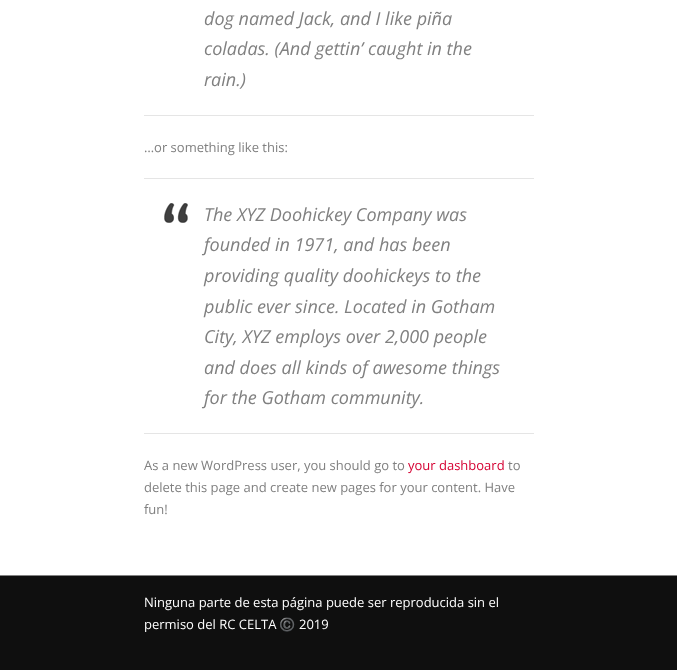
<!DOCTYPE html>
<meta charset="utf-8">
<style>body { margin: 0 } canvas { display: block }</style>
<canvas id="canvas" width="677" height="670"></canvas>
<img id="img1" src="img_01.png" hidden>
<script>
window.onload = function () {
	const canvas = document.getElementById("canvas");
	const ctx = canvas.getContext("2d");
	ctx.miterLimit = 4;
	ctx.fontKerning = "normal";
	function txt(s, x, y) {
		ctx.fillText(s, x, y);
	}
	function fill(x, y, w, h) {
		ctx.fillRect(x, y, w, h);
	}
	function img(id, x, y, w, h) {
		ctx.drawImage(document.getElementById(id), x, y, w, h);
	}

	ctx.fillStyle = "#FFFFFF";
	fill(0, 0, 677, 670);
	ctx.fillStyle = "#E5E5E5";
	fill(144, 115, 390, 1);
	img("img1", 164, 203, 24, 20);
	fill(144, 178, 390, 1);
	fill(144, 433, 390, 1);
	ctx.fillStyle = "#0F0F0F";
	fill(0, 576, 677, 94);
	ctx.fillStyle = "#828282";
	fill(0, 575, 677, 1);
	ctx.font = "italic 18px Open Sans";
	ctx.fillStyle = "#808080";
	txt("dog named Jack, and I like piña", 204, 25);
	txt("coladas. (And gettin’ caught in the", 204, 55);
	txt("rain.)", 204, 86);
	ctx.font = "13px Open Sans";
	txt("…or something like this:", 144, 152);
	ctx.font = "italic 18px Open Sans";
	txt("The XYZ Doohickey Company was", 204, 221);
	txt("founded in 1971, and has been", 204, 251);
	txt("providing quality doohickeys to the", 204, 282);
	txt("public ever since. Located in Gotham", 204, 313);
	txt("City, XYZ employs over 2,000 people", 204, 343);
	txt("and does all kinds of awesome things", 204, 374);
	txt("for the Gotham community.", 204, 404);
	ctx.font = "13px Open Sans";
	txt("As a new WordPress user, you should go to", 144, 470);
	ctx.fillStyle = "#D50032";
	txt("your dashboard", 408, 470);
	ctx.fillStyle = "#808080";
	txt("to", 508, 470);
	txt("delete this page and create new pages for your content. Have", 144, 492);
	txt("fun!", 144, 514);
	ctx.fillStyle = "#FFFFFF";
	txt("Ninguna parte de esta página puede ser reproducida sin el", 144, 607);
	txt("permiso del RC CELTA", 144, 629);
	ctx.font = "13px Noto Color Emoji";
	txt("©️", 279, 629);
	ctx.font = "13px Open Sans";
	txt("2019", 299, 629);
};
</script>
